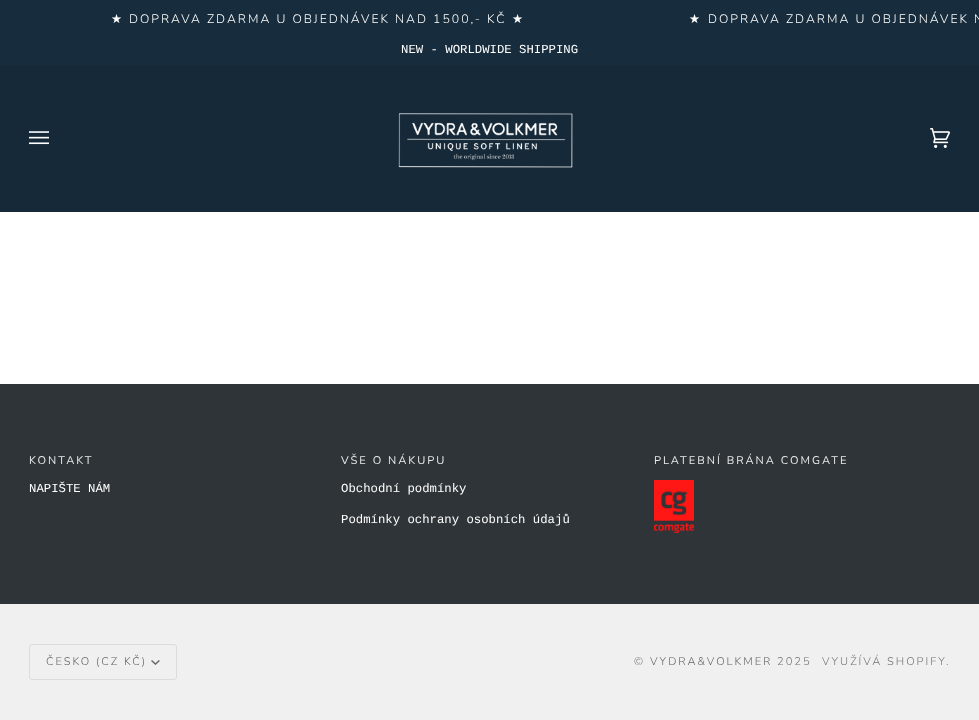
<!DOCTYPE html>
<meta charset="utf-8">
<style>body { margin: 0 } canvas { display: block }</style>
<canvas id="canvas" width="979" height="720"></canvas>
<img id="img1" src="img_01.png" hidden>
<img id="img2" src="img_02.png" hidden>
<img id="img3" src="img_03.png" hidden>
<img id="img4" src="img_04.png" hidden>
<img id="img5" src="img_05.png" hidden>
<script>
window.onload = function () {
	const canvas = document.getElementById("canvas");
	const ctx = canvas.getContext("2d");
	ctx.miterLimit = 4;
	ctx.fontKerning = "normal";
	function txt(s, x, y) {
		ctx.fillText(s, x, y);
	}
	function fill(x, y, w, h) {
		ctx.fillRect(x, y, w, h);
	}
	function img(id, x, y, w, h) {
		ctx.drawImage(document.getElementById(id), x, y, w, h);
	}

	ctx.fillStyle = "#FFFFFF";
	fill(0, 0, 979, 720);
	ctx.fillStyle = "#162938";
	fill(0, 65, 979, 147);
	ctx.fillStyle = "#172C3C";
	fill(0, 0, 979, 65);
	img("img1", 29, 131, 20, 14);
	img("img2", 398, 113, 175, 55);
	img("img3", 930, 128, 20, 20);
	ctx.fillStyle = "#2E3438";
	fill(0, 384, 979, 220);
	img("img4", 654, 480, 40, 53);
	ctx.fillStyle = "#F0F0F0";
	fill(0, 604, 979, 116);
	ctx.beginPath();
	ctx.roundRect(29.5, 644.5, 147, 35, 2.5);
	ctx.strokeStyle = "#DBDBDB";
	ctx.stroke();
	img("img5", 151, 660, 9, 5);
	ctx.letterSpacing = "2px";
	ctx.font = "12.3px DejaVu Sans";
	ctx.fillStyle = "#FFFFFF";
	txt("★", 111, 23);
	ctx.font = "300 12.3px Nunito";
	txt("DOPRAVA ZDARMA U OBJEDNÁVEK NAD 1500,- KČ", 129, 23);
	ctx.font = "12.3px DejaVu Sans";
	txt("★", 512, 23);
	txt("★", 689, 23);
	ctx.font = "300 12.3px Nunito";
	txt("DOPRAVA ZDARMA U OBJEDNÁVEK N", 708, 23);
	ctx.letterSpacing = "0px";
	ctx.font = "12.3px Liberation Mono";
	txt("NEW - WORLDWIDE SHIPPING", 401, 53);
	ctx.letterSpacing = "2px";
	ctx.font = "11.1px Nunito";
	ctx.fillStyle = "#EAEBEB";
	txt("KONTAKT", 29, 464);
	ctx.letterSpacing = "0px";
	ctx.font = "12.3px Liberation Mono";
	ctx.fillStyle = "#FFFFFF";
	txt("NAPIŠTE NÁM", 29, 492);
	ctx.letterSpacing = "2px";
	ctx.font = "11.1px Nunito";
	ctx.fillStyle = "#EAEBEB";
	txt("VŠE O NÁKUPU", 341, 464);
	ctx.letterSpacing = "0px";
	ctx.font = "12.3px Liberation Mono";
	ctx.fillStyle = "#FFFFFF";
	txt("Obchodní podmínky", 341, 492);
	txt("Podmínky ochrany osobních údajů", 341, 523);
	ctx.letterSpacing = "2px";
	ctx.font = "11.1px Nunito";
	ctx.fillStyle = "#EAEBEB";
	txt("PLATEBNÍ BRÁNA COMGATE", 654, 464);
	ctx.font = "300 11.1px Nunito";
	ctx.fillStyle = "#656565";
	txt("ČESKO (CZ KČ)", 46, 665);
	ctx.fillStyle = "#737373";
	txt("©", 634, 665);
	ctx.fillStyle = "#656565";
	txt("VYDRA&VOLKMER", 650, 665);
	ctx.fillStyle = "#737373";
	txt("2025", 777, 665);
	txt("VYUŽÍVÁ SHOPIFY.", 822, 665);
};
</script>
